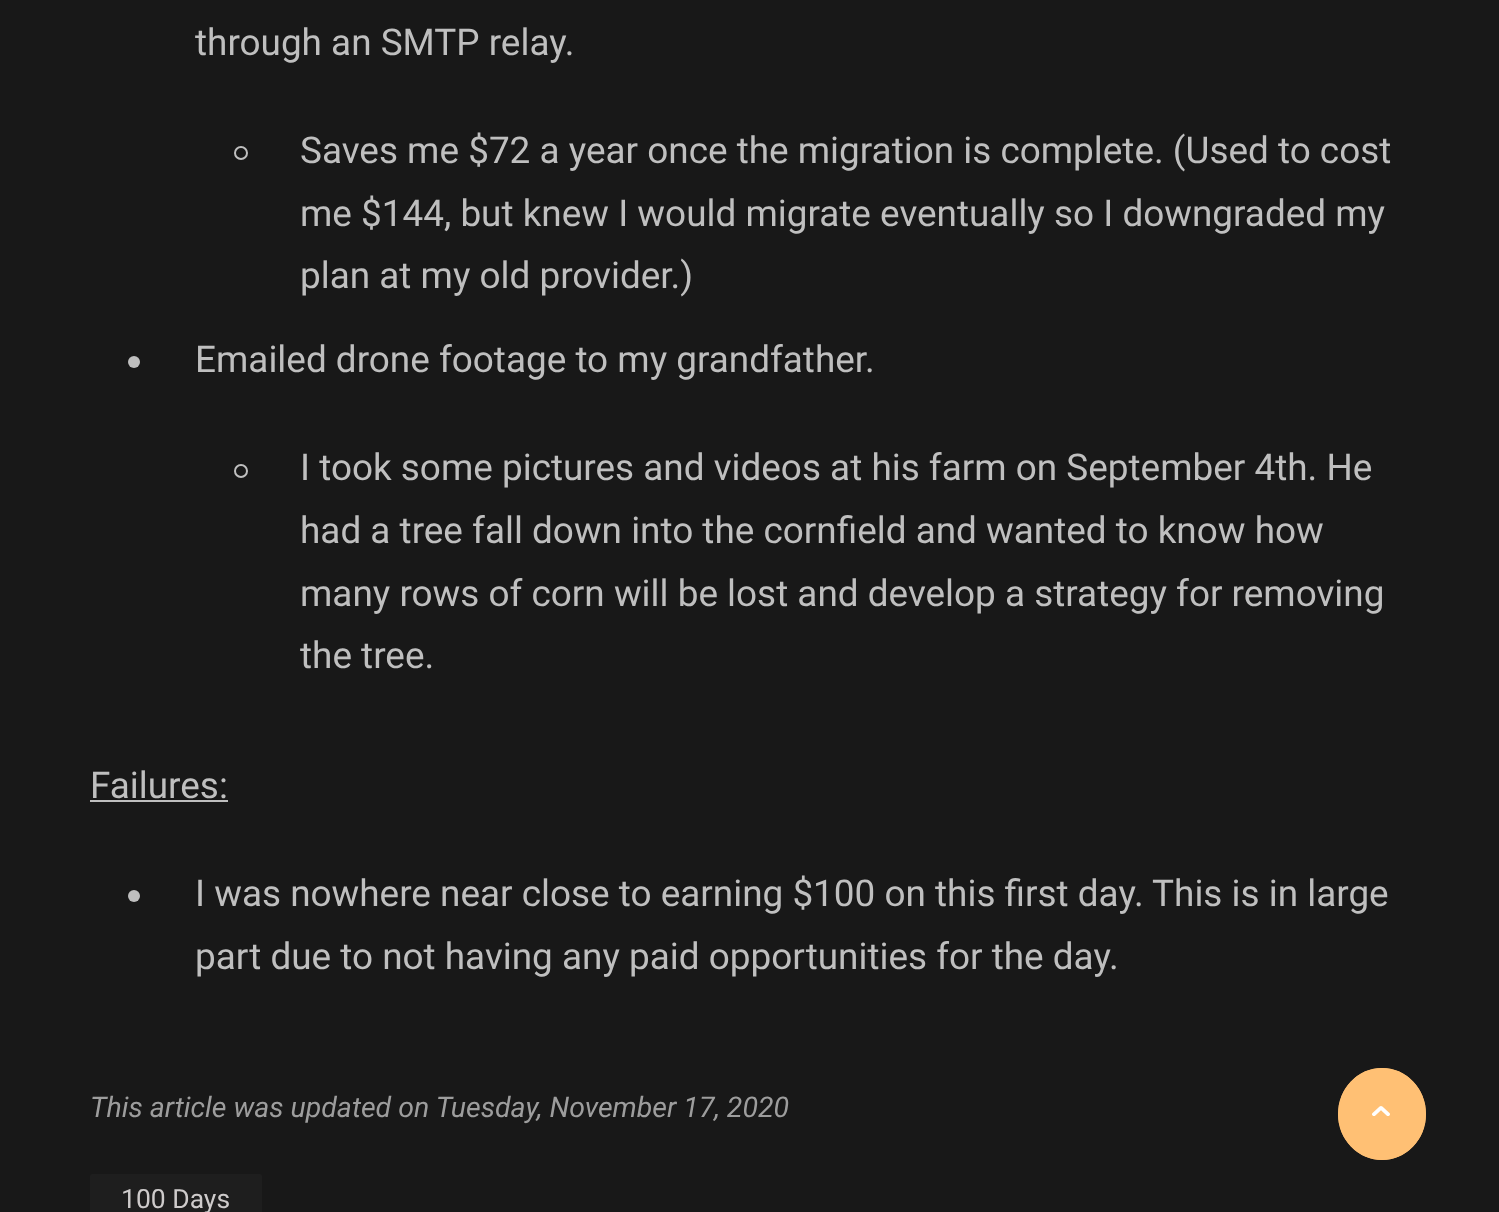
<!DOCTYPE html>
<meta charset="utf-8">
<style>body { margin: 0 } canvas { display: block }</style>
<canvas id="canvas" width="1499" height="1212"></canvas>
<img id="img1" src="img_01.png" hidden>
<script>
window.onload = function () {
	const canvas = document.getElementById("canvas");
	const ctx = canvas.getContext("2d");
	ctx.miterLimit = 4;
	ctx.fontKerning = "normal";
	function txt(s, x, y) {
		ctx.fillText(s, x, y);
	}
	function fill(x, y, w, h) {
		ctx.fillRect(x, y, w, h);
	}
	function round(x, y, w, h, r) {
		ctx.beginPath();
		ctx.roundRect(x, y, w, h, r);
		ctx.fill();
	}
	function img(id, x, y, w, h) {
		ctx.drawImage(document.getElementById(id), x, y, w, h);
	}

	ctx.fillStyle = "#181818";
	fill(0, 0, 1499, 1212);
	ctx.beginPath();
	ctx.arc(241, 153, 6, 0, Math.PI * 2);
	ctx.strokeStyle = "#BFBFBF";
	ctx.lineWidth = 2;
	ctx.stroke();
	ctx.fillStyle = "#BFBFBF";
	ctx.beginPath();
	ctx.arc(134, 362, 6, 0, Math.PI * 2);
	ctx.fill();
	ctx.beginPath();
	ctx.arc(241, 471, 6, 0, Math.PI * 2);
	ctx.stroke();
	fill(90, 800, 138, 2);
	ctx.beginPath();
	ctx.arc(134, 896, 6, 0, Math.PI * 2);
	ctx.fill();
	ctx.fillStyle = "#1E1E1E";
	round(90, 1174, 172, 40, 2);
	ctx.fillStyle = "#FFC074";
	ctx.beginPath();
	ctx.ellipse(1382, 1114, 44, 46, 0, 0, Math.PI * 2);
	ctx.fill();
	ctx.beginPath();
	ctx.moveTo(1382, 1069);
	ctx.bezierCurveTo(1405.5, 1069, 1425, 1089, 1425, 1114);
	ctx.bezierCurveTo(1425, 1139, 1405.5, 1159, 1382, 1159);
	ctx.bezierCurveTo(1358.5, 1159, 1339, 1139, 1339, 1114);
	ctx.bezierCurveTo(1339, 1089, 1358.5, 1069, 1382, 1069);
	ctx.closePath();
	ctx.strokeStyle = "#FFC074";
	ctx.stroke();
	img("img1", 1372, 1106, 18, 10);
	ctx.font = "36.9px Roboto";
	ctx.fillStyle = "#BFBFBF";
	txt("through an SMTP relay.", 195, 55);
	txt("Saves me $72 a year once the migration is complete. (Used to cost", 300, 163);
	txt("me $144, but knew I would migrate eventually so I downgraded my", 300, 226);
	txt("plan at my old provider.)", 300, 288);
	txt("Emailed drone footage to my grandfather.", 195, 372);
	txt("I took some pictures and videos at his farm on September 4th. He", 300, 480);
	txt("had a tree fall down into the cornfield and wanted to know how", 300, 543);
	txt("many rows of corn will be lost and develop a strategy for removing", 300, 606);
	txt("the tree.", 300, 668);
	txt("Failures:", 90, 798);
	txt("I was nowhere near close to earning $100 on this first day. This is in large", 195, 906);
	txt("part due to not having any paid opportunities for the day.", 195, 969);
	ctx.font = "italic 28.5px Roboto";
	ctx.fillStyle = "#9D9D9D";
	txt("This article was updated on Tuesday, November 17, 2020", 90, 1117);
	ctx.font = "26.5px Roboto";
	ctx.fillStyle = "#CECBCB";
	txt("100 Days", 121, 1208);
};
</script>
